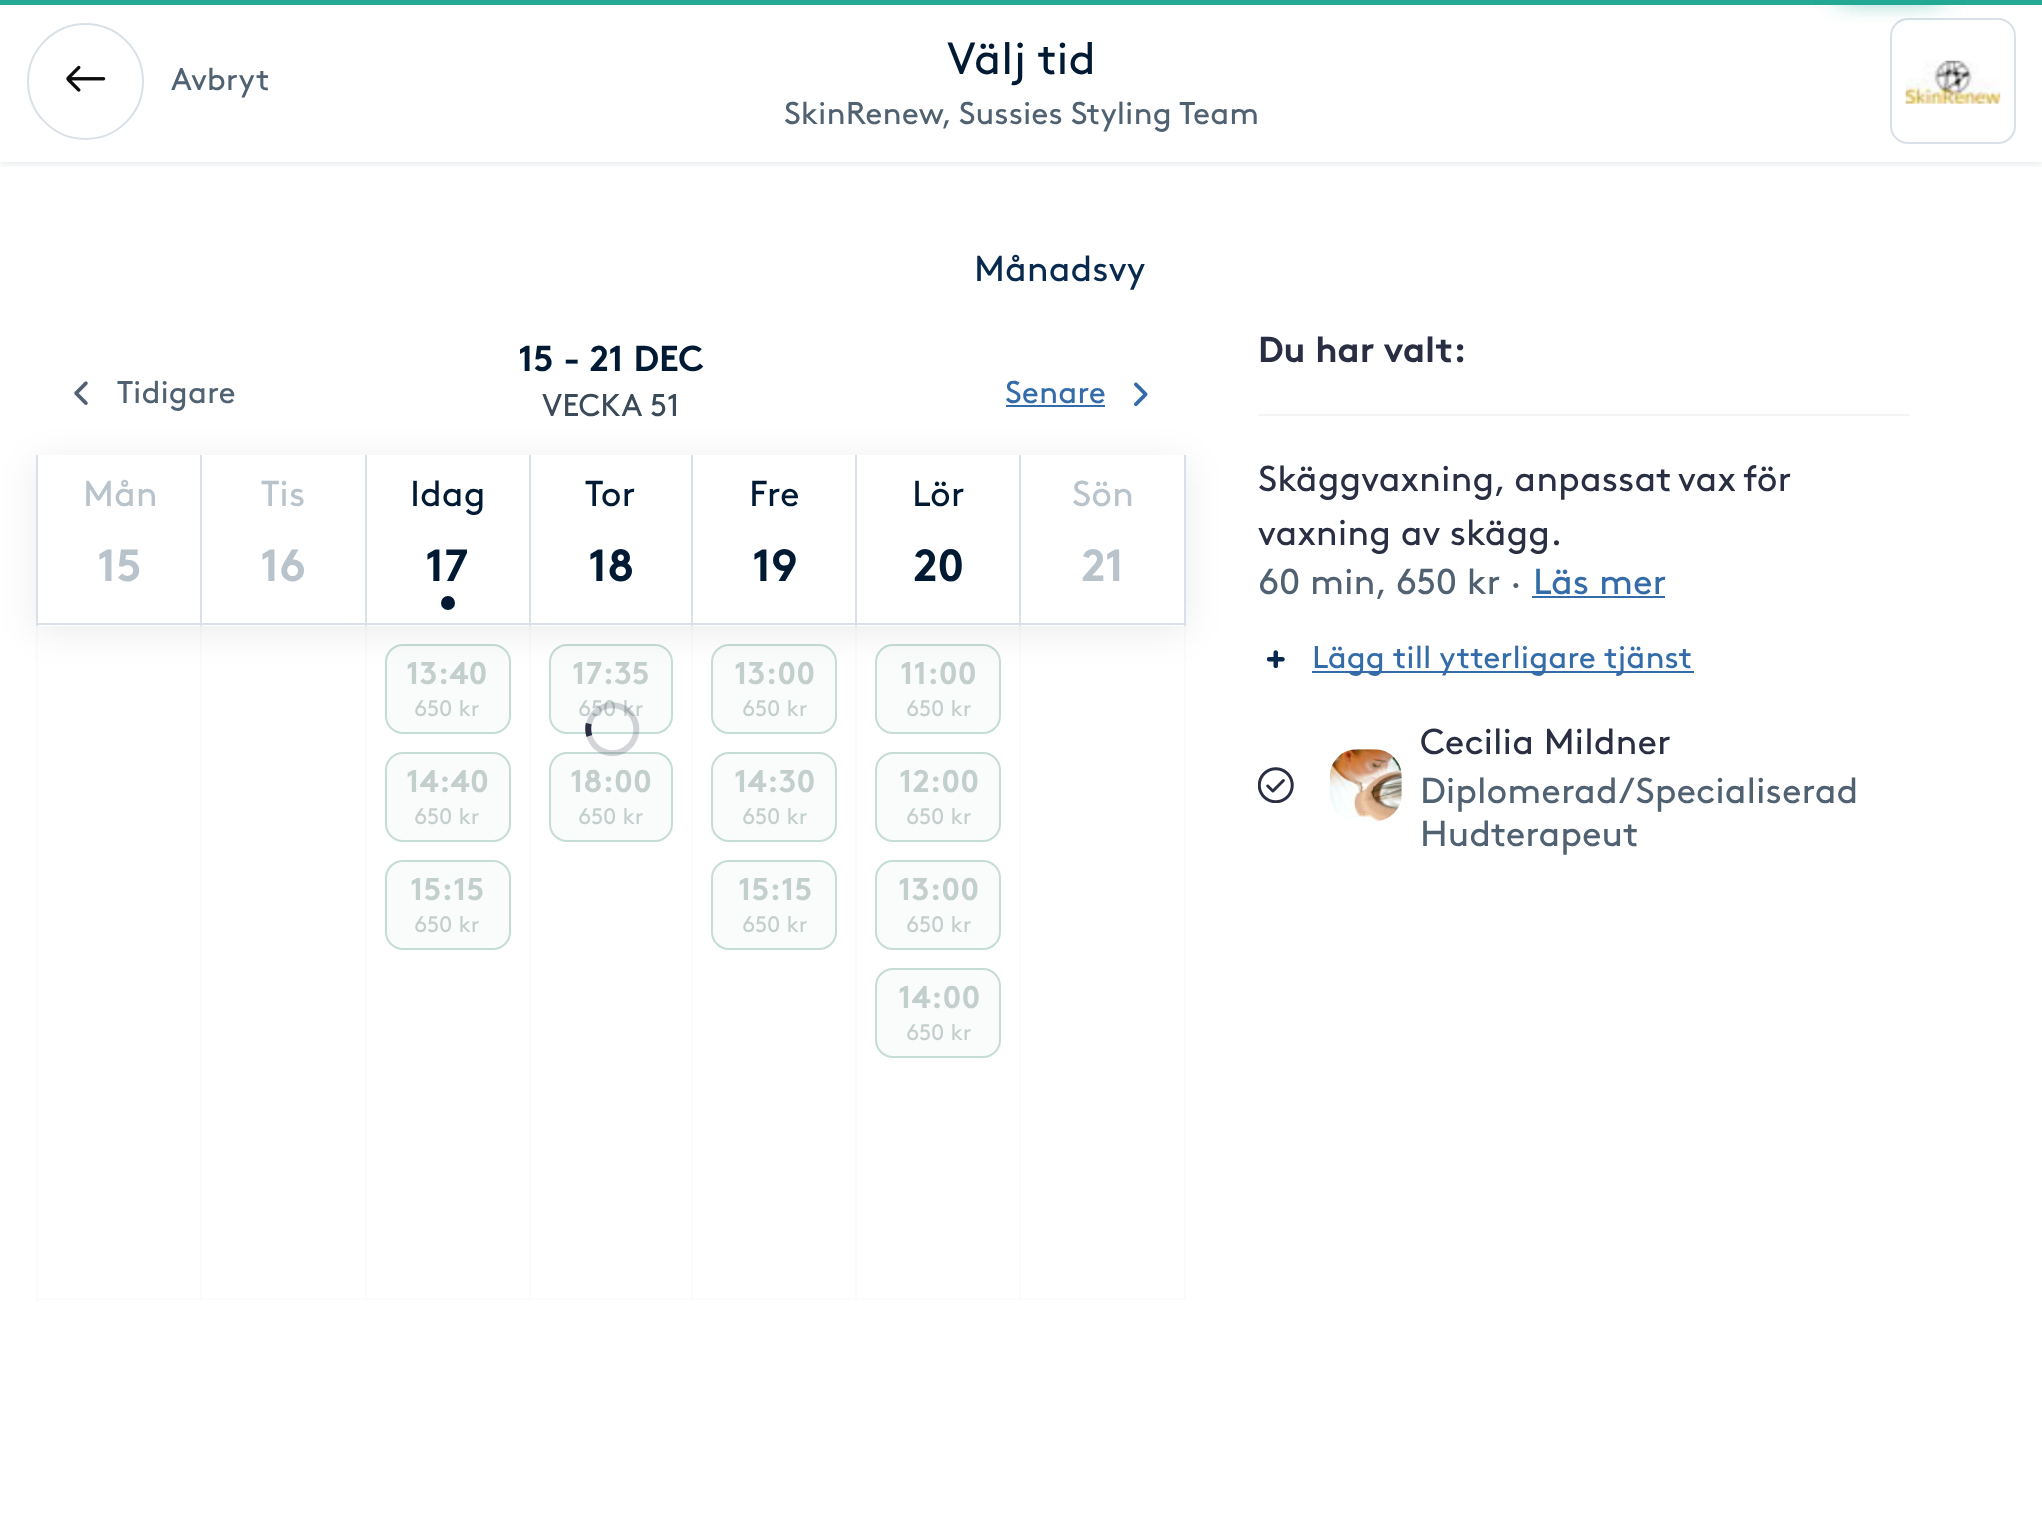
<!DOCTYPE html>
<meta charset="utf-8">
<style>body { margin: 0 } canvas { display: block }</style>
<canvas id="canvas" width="2042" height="1525"></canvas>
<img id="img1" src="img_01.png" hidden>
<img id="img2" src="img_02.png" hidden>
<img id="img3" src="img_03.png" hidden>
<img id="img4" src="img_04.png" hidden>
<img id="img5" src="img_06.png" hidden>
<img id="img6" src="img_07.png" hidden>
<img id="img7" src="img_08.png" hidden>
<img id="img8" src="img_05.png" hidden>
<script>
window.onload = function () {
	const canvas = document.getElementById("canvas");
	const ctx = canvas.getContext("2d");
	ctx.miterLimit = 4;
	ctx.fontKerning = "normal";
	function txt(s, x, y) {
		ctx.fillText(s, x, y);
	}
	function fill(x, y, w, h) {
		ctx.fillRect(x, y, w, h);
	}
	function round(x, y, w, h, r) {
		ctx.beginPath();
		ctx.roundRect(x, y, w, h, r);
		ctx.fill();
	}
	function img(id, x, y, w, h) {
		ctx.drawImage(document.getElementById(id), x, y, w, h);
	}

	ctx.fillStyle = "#FFFFFF";
	fill(0, 0, 2042, 1525);
	ctx.save();
	ctx.beginPath();
	ctx.rect(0, 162, 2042, 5);
	ctx.clip();
	ctx.fillStyle = "rgba(0, 26, 51, 0.1)";
	ctx.filter = "blur(3.5px)";
	ctx.beginPath();
	ctx.rect(0, 2, 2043, 162);
	ctx.fill();
	ctx.filter = "none";
	ctx.restore();
	ctx.fillStyle = "#23A994";
	fill(0, 0, 2042, 5);
	ctx.beginPath();
	ctx.roundRect(1891, 19, 124, 124, 17);
	ctx.strokeStyle = "#D9E0E7";
	ctx.lineWidth = 2;
	ctx.stroke();
	ctx.filter = "blur(11.5px)";
	ctx.beginPath();
	ctx.rect(1838, -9, 104, 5);
	ctx.fill();
	ctx.filter = "none";
	ctx.filter = "blur(11.5px)";
	ctx.beginPath();
	ctx.rect(1838, -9, 104, 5);
	ctx.fill();
	ctx.filter = "none";
	ctx.beginPath();
	ctx.arc(85.5, 81.5, 57.5, 0, Math.PI * 2);
	ctx.stroke();
	img("img1", 66, 65, 40, 27);
	img("img2", 1905, 60, 96, 44);
	ctx.fillStyle = "#F9FBFC";
	fill(36, 1298, 983, 2);
	fill(36, 626, 2, 675);
	fill(200, 626, 2, 675);
	fill(365, 626, 2, 675);
	ctx.fillStyle = "#F9FCFB";
	ctx.beginPath();
	ctx.roundRect(386, 645, 124, 88, 17);
	ctx.fill();
	ctx.strokeStyle = "#C5DCD7";
	ctx.stroke();
	ctx.fillStyle = "#F9FBFC";
	fill(529, 626, 2, 675);
	ctx.fillStyle = "#F9FCFB";
	ctx.beginPath();
	ctx.roundRect(550, 645, 122, 88, 17);
	ctx.fill();
	ctx.stroke();
	ctx.fillStyle = "#F9FBFC";
	fill(691, 626, 2, 675);
	ctx.fillStyle = "#F9FCFB";
	ctx.beginPath();
	ctx.roundRect(712, 645, 124, 88, 17);
	ctx.fill();
	ctx.stroke();
	ctx.fillStyle = "#F9FBFC";
	fill(855, 626, 2, 675);
	ctx.fillStyle = "#F9FCFB";
	ctx.beginPath();
	ctx.roundRect(876, 645, 124, 88, 17);
	ctx.fill();
	ctx.stroke();
	ctx.fillStyle = "#F9FBFC";
	fill(1184, 626, 2, 675);
	fill(1019, 1298, 167, 2);
	fill(1019, 626, 2, 675);
	ctx.fillStyle = "rgba(0, 0, 0, 0.08)";
	ctx.filter = "blur(18px)";
	ctx.beginPath();
	ctx.rect(36, 461, 1150, 171);
	ctx.fill();
	ctx.filter = "none";
	ctx.fillStyle = "#FFFFFF";
	fill(38, 455, 1146, 171);
	img("img3", 74, 381, 14, 24);
	ctx.fillStyle = "#336CA8";
	fill(1006, 405, 99, 2);
	img("img4", 1134, 382, 14, 25);
	ctx.fillStyle = "#D9E0E7";
	fill(36, 623, 983, 2);
	fill(36, 455, 2, 171);
	fill(200, 455, 2, 171);
	fill(365, 455, 2, 171);
	ctx.fillStyle = "#001A33";
	ctx.beginPath();
	ctx.arc(448, 603, 7, 0, Math.PI * 2);
	ctx.fill();
	ctx.fillStyle = "#D9E0E7";
	fill(529, 455, 2, 171);
	fill(691, 455, 2, 171);
	fill(855, 455, 2, 171);
	fill(1184, 455, 2, 171);
	fill(1019, 623, 167, 2);
	fill(1019, 455, 2, 171);
	ctx.fillStyle = "#F9FCFB";
	ctx.beginPath();
	ctx.roundRect(386, 753, 124, 88, 17);
	ctx.fill();
	ctx.stroke();
	ctx.beginPath();
	ctx.roundRect(386, 861, 124, 88, 17);
	ctx.fill();
	ctx.stroke();
	ctx.beginPath();
	ctx.roundRect(550, 753, 122, 88, 17);
	ctx.fill();
	ctx.stroke();
	ctx.beginPath();
	ctx.roundRect(712, 753, 124, 88, 17);
	ctx.fill();
	ctx.stroke();
	ctx.beginPath();
	ctx.roundRect(712, 861, 124, 88, 17);
	ctx.fill();
	ctx.stroke();
	ctx.beginPath();
	ctx.roundRect(876, 753, 124, 88, 17);
	ctx.fill();
	ctx.stroke();
	ctx.beginPath();
	ctx.roundRect(876, 861, 124, 88, 17);
	ctx.fill();
	ctx.stroke();
	ctx.beginPath();
	ctx.roundRect(876, 969, 124, 88, 17);
	ctx.fill();
	ctx.stroke();
	ctx.fillStyle = "#F4F4F6";
	fill(1258, 414, 652, 2);
	ctx.fillStyle = "#336CA8";
	fill(1532, 596, 133, 2);
	img("img5", 1267, 650, 18, 18);
	fill(1312, 671, 382, 2);
	img("img6", 1258, 767, 36, 36);
	ctx.fillStyle = "#F2F7FA";
	round(1330, 749, 72, 72, 27);
	img("img7", 1329, 749, 73, 72);
	ctx.font = "31.5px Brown";
	ctx.fillStyle = "#506172";
	txt("Avbryt", 171, 90);
	ctx.font = "45px Brown";
	ctx.fillStyle = "#001A33";
	txt("Välj tid", 947, 74);
	ctx.font = "31.5px Brown";
	ctx.fillStyle = "#506172";
	txt("SkinRenew, Sussies Styling Team", 784, 124);
	ctx.font = "36px Brown";
	ctx.fillStyle = "#092A4E";
	txt("Månadsvy", 974, 281);
	ctx.font = "bold 36px Brown";
	ctx.fillStyle = "#001A33";
	txt("15 - 21 DEC", 518, 371);
	ctx.font = "31.5px Brown";
	ctx.fillStyle = "#3B4A58";
	txt("VECKA 51", 542, 416);
	ctx.fillStyle = "#506172";
	txt("Tidigare", 117, 403);
	ctx.fillStyle = "#336CA8";
	txt("Senare", 1005, 403);
	ctx.font = "36px Brown";
	ctx.fillStyle = "#B8C3CC";
	txt("Mån", 83, 506);
	ctx.font = "bold 45px Brown";
	txt("15", 97, 581);
	ctx.font = "36px Brown";
	txt("Tis", 261, 506);
	ctx.font = "bold 45px Brown";
	txt("16", 260, 581);
	ctx.font = "36px Brown";
	ctx.fillStyle = "#001A33";
	txt("Idag", 410, 506);
	ctx.font = "bold 45px Brown";
	txt("17", 425, 581);
	ctx.font = "36px Brown";
	txt("Tor", 585, 506);
	ctx.font = "bold 45px Brown";
	txt("18", 588, 581);
	ctx.font = "36px Brown";
	txt("Fre", 749, 506);
	ctx.font = "bold 45px Brown";
	txt("19", 752, 581);
	ctx.font = "36px Brown";
	txt("Lör", 912, 506);
	ctx.font = "bold 45px Brown";
	txt("20", 913, 581);
	ctx.font = "36px Brown";
	ctx.fillStyle = "#B8C3CC";
	txt("Sön", 1072, 506);
	ctx.font = "bold 45px Brown";
	txt("21", 1081, 581);
	ctx.font = "bold 31.5px Brown";
	ctx.fillStyle = "#C3CFCD";
	txt("13:40", 406, 684);
	ctx.font = "22.5px Brown";
	txt("650 kr", 414, 716);
	ctx.font = "bold 31.5px Brown";
	txt("14:40", 406, 792);
	ctx.font = "22.5px Brown";
	txt("650 kr", 414, 824);
	ctx.font = "bold 31.5px Brown";
	txt("15:15", 410, 900);
	ctx.font = "22.5px Brown";
	txt("650 kr", 414, 932);
	ctx.font = "bold 31.5px Brown";
	txt("17:35", 572, 684);
	ctx.font = "22.5px Brown";
	txt("650 kr", 578, 716);
	ctx.font = "bold 31.5px Brown";
	txt("18:00", 570, 792);
	ctx.font = "22.5px Brown";
	txt("650 kr", 578, 824);
	ctx.font = "bold 31.5px Brown";
	txt("13:00", 734, 684);
	ctx.font = "22.5px Brown";
	txt("650 kr", 742, 716);
	ctx.font = "bold 31.5px Brown";
	txt("14:30", 734, 792);
	ctx.font = "22.5px Brown";
	txt("650 kr", 742, 824);
	ctx.font = "bold 31.5px Brown";
	txt("15:15", 738, 900);
	ctx.font = "22.5px Brown";
	txt("650 kr", 742, 932);
	ctx.font = "bold 31.5px Brown";
	txt("11:00", 900, 684);
	ctx.font = "22.5px Brown";
	txt("650 kr", 906, 716);
	ctx.font = "bold 31.5px Brown";
	txt("12:00", 899, 792);
	ctx.font = "22.5px Brown";
	txt("650 kr", 906, 824);
	ctx.font = "bold 31.5px Brown";
	txt("13:00", 898, 900);
	ctx.font = "22.5px Brown";
	txt("650 kr", 906, 932);
	ctx.font = "bold 31.5px Brown";
	txt("14:00", 898, 1008);
	ctx.font = "22.5px Brown";
	txt("650 kr", 906, 1040);
	img("img8", 585, 702, 55, 54);
	ctx.font = "bold 36px Brown";
	ctx.fillStyle = "#2A2E43";
	txt("Du har valt:", 1258, 362);
	ctx.font = "36px Brown";
	txt("Skäggvaxning, anpassat", 1258, 491);
	txt("vax", 1678, 491);
	txt("för", 1743, 491);
	txt("vaxning av skägg.", 1258, 545);
	ctx.fillStyle = "#506172";
	txt("60 min, 650 kr ·", 1258, 594);
	ctx.fillStyle = "#336CA8";
	txt("Läs mer", 1533, 594);
	ctx.font = "31.5px Brown";
	txt("Lägg till ytterligare tjänst", 1312, 668);
	ctx.font = "36px Brown";
	ctx.fillStyle = "#2A2E43";
	txt("Cecilia Mildner", 1420, 754);
	ctx.fillStyle = "#506172";
	txt("Diplomerad/Specialiserad", 1420, 803);
	txt("Hudterapeut", 1420, 846);
};
</script>
